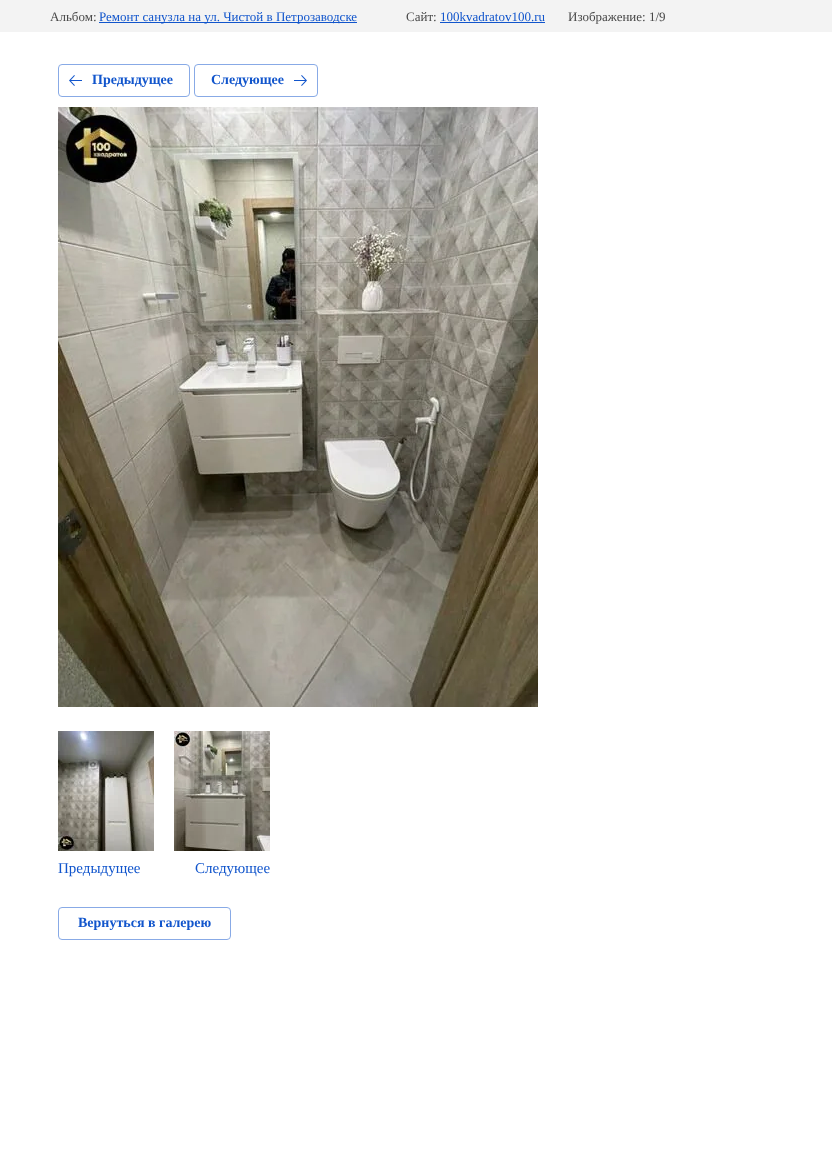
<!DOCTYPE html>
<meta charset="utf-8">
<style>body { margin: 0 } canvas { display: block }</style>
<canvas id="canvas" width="832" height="1161"></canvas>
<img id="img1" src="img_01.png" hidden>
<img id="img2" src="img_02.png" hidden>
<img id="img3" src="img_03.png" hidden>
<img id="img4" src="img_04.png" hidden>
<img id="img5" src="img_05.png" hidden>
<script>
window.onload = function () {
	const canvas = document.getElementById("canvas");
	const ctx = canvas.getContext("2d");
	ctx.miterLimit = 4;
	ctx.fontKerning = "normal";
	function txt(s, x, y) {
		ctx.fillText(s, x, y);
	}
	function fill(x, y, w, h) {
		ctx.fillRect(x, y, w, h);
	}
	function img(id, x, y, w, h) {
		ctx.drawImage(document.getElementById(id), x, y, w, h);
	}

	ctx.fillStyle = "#FFFFFF";
	fill(0, 0, 832, 1161);
	ctx.fillStyle = "#F3F3F3";
	fill(0, 0, 832, 32);
	ctx.fillStyle = "#1155CC";
	fill(99, 22, 258, 1);
	fill(440, 22, 105, 1);
	ctx.beginPath();
	ctx.roundRect(58.5, 64.5, 131, 32, 3.5);
	ctx.strokeStyle = "#88AAE6";
	ctx.stroke();
	img("img1", 69, 75, 13, 11);
	ctx.beginPath();
	ctx.roundRect(194.5, 64.5, 123, 32, 3.5);
	ctx.stroke();
	img("img2", 294, 75, 13, 11);
	img("img3", 58, 107, 480, 600);
	img("img4", 58, 731, 96, 120);
	img("img5", 174, 731, 96, 120);
	ctx.beginPath();
	ctx.roundRect(58.5, 907.5, 172, 32, 3.5);
	ctx.stroke();
	ctx.font = "13px Liberation Serif";
	ctx.fillStyle = "#484848";
	txt("Альбом:", 50, 21);
	ctx.fillStyle = "#1155CC";
	txt("Ремонт санузла на ул. Чистой в Петрозаводске", 99, 21);
	ctx.fillStyle = "#484848";
	txt("Сайт:", 406, 21);
	ctx.fillStyle = "#1155CC";
	txt("100kvadratov100.ru", 440, 21);
	ctx.fillStyle = "#484848";
	txt("Изображение: 1/9", 568, 21);
	ctx.font = "bold 14px Liberation Serif";
	ctx.fillStyle = "#1155CC";
	txt("Предыдущее", 92, 84);
	txt("Следующее", 211, 84);
	ctx.font = "15px Liberation Serif";
	txt("Предыдущее", 58, 873);
	txt("Следующее", 195, 873);
	ctx.font = "bold 14px Liberation Serif";
	txt("Вернуться в галерею", 78, 927);
};
</script>
